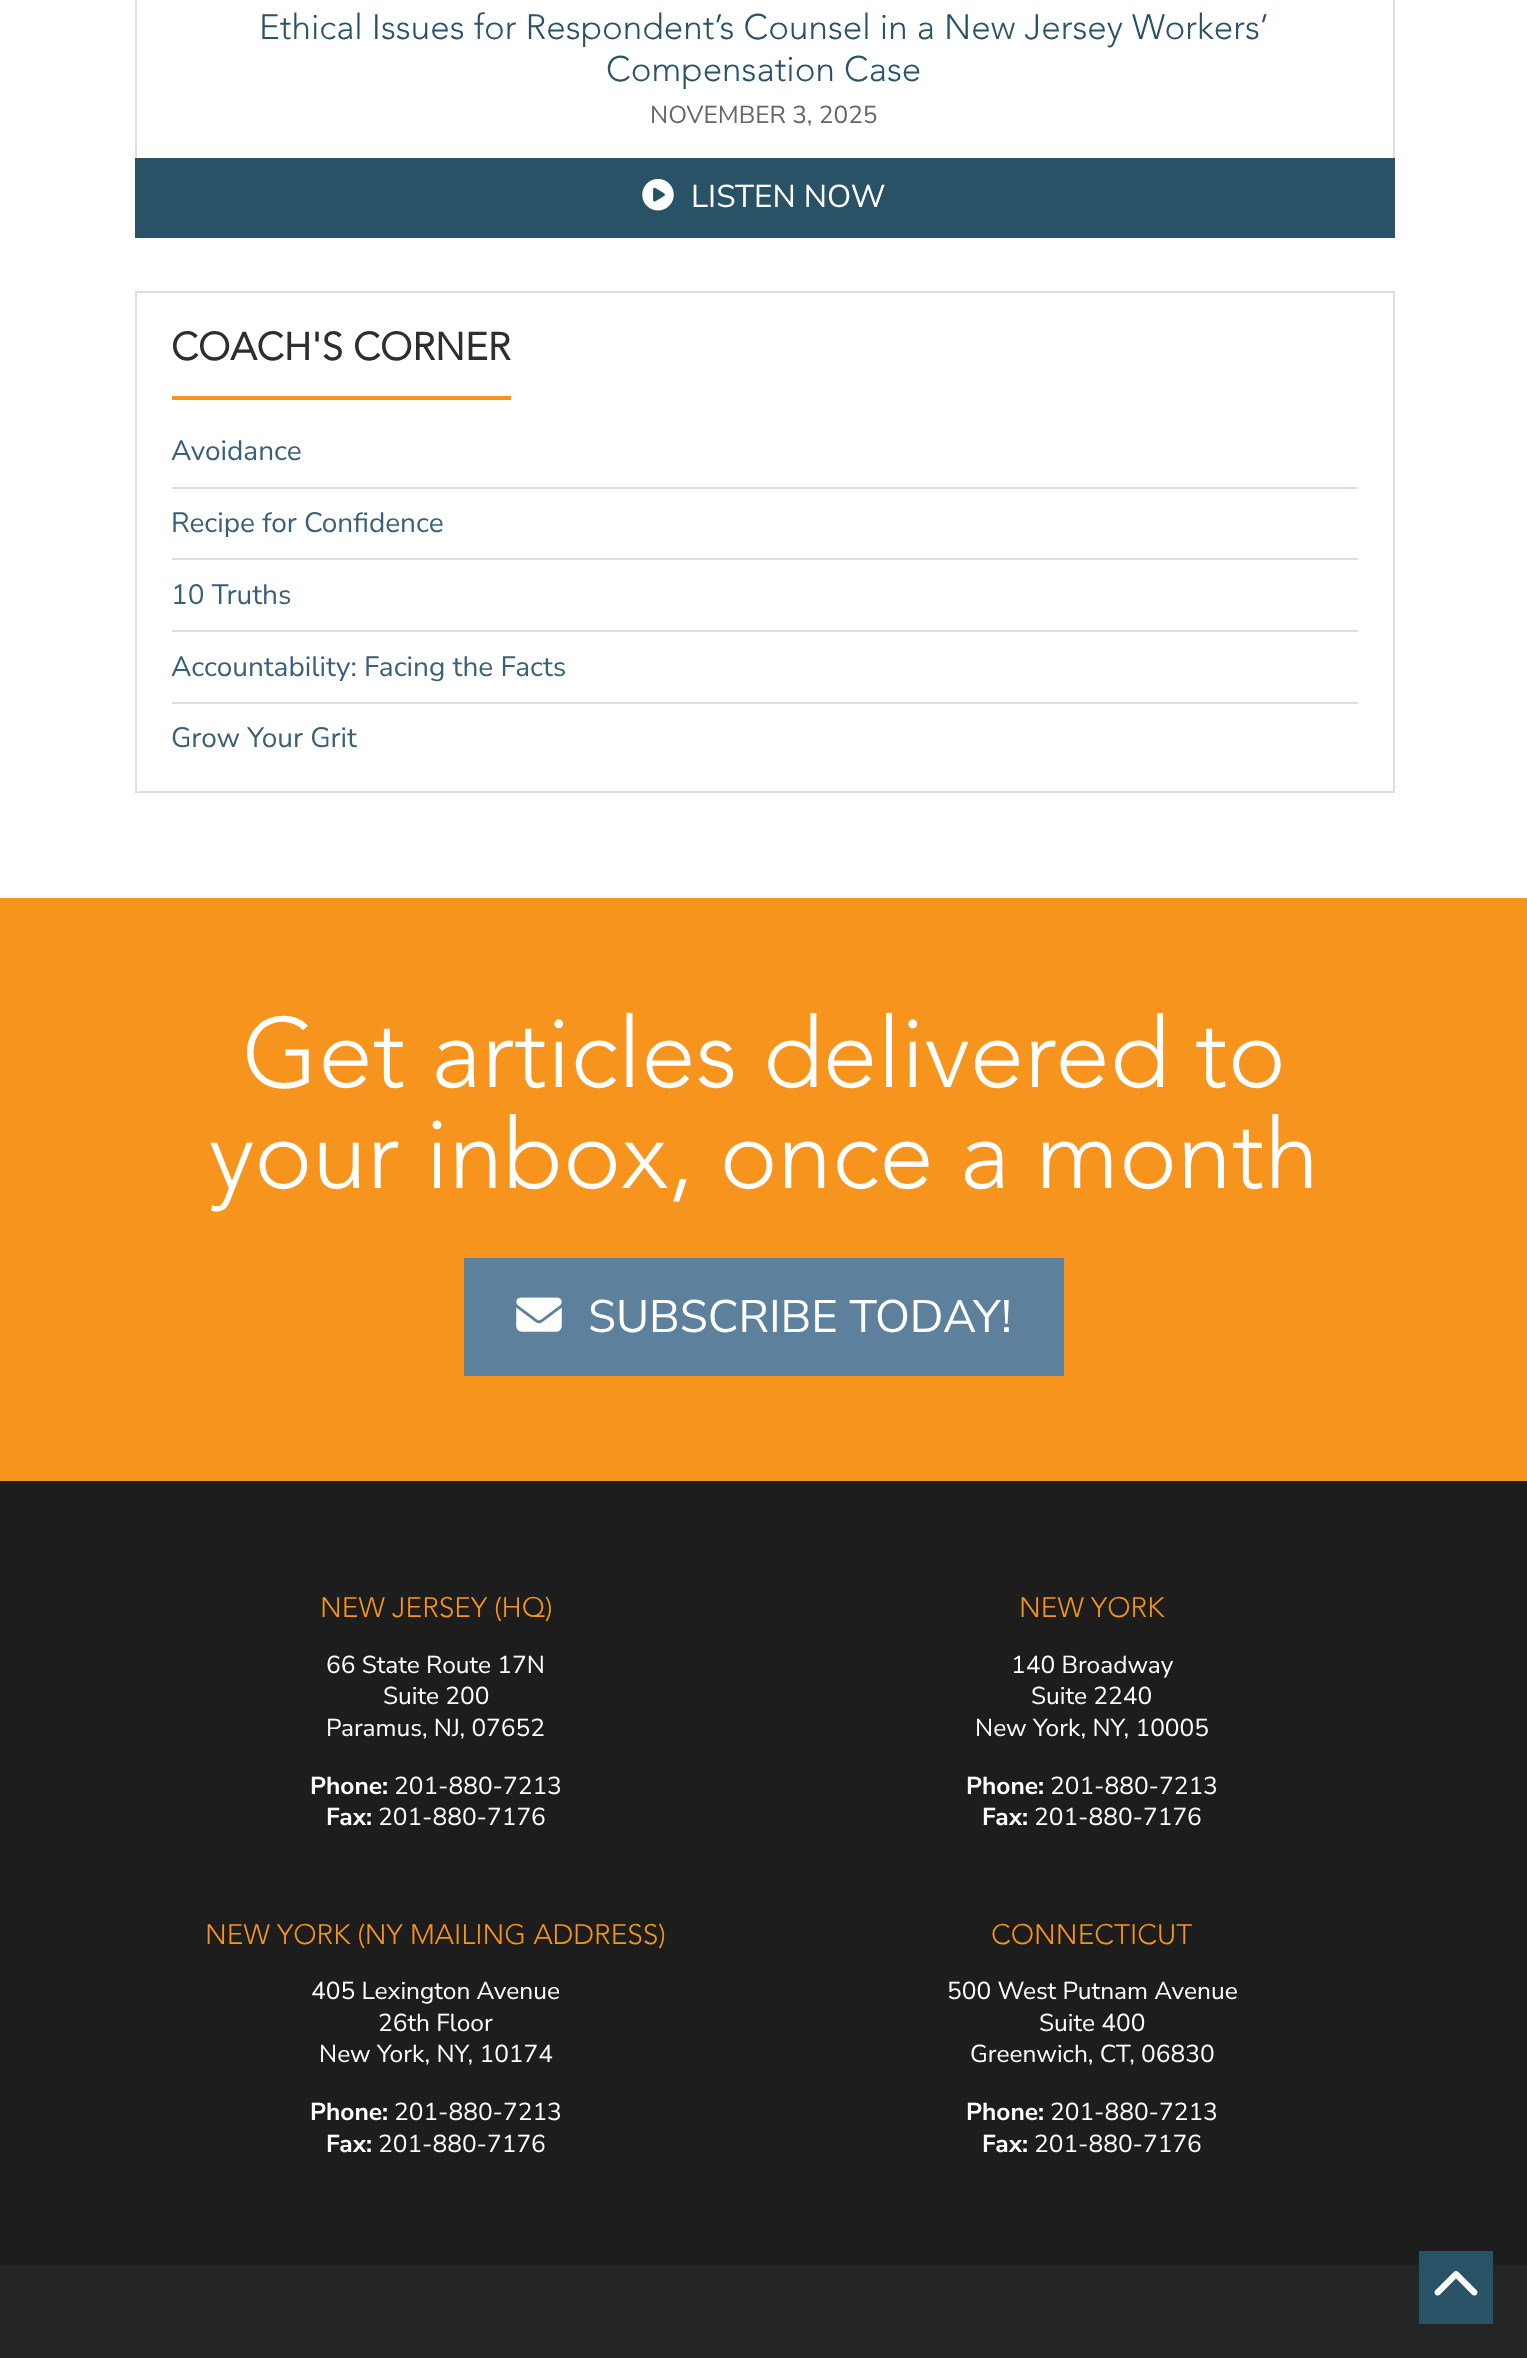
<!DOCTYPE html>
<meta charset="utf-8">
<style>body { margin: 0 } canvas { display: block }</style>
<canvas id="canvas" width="1527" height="2358"></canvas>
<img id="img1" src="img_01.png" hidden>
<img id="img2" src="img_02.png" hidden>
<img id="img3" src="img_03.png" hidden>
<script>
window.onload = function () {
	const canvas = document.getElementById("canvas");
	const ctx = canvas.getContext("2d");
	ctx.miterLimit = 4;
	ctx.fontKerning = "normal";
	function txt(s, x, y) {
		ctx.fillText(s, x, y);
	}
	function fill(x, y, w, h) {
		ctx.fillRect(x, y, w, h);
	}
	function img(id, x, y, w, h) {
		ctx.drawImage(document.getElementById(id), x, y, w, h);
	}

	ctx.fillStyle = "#252525";
	fill(0, 0, 1527, 2358);
	ctx.fillStyle = "#FFFFFF";
	fill(0, 0, 1527, 898);
	ctx.fillStyle = "#DCDEE4";
	fill(1393, 0, 2, 158);
	fill(135, 0, 2, 158);
	ctx.fillStyle = "#295267";
	fill(135, 158, 1260, 80);
	img("img1", 642, 178, 32, 33);
	ctx.strokeStyle = "#DCDEE4";
	ctx.lineWidth = 2;
	ctx.strokeRect(136, 292, 1258, 500);
	ctx.fillStyle = "#F7941E";
	fill(172, 396, 339, 4);
	ctx.fillStyle = "#DDE1E3";
	fill(172, 487, 1186, 2);
	fill(172, 558, 1186, 2);
	fill(172, 630, 1186, 2);
	fill(172, 702, 1186, 2);
	ctx.fillStyle = "#F7941E";
	fill(0, 898, 1527, 583);
	ctx.fillStyle = "#5D819D";
	fill(464, 1258, 600, 118);
	img("img2", 516, 1297, 46, 35);
	ctx.fillStyle = "#1D1D1D";
	fill(0, 1481, 1527, 784);
	ctx.fillStyle = "#295267";
	fill(1419, 2251, 74, 73);
	img("img3", 1434, 2271, 44, 25);
	ctx.font = "300 35px 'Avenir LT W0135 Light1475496'";
	txt("Ethical Issues for Respondent’s Counsel in a New Jersey Workers’", 259, 39);
	txt("Compensation Case", 606, 81);
	ctx.font = "24.5px Nunito Sans";
	ctx.fillStyle = "#666666";
	txt("NOVEMBER 3, 2025", 650, 123);
	ctx.font = "31.5px Nunito Sans";
	ctx.fillStyle = "#FFFFFF";
	txt("LISTEN NOW", 691, 207);
	ctx.font = "bold 38.5px 'Avenir LT W0135 Light1475496'";
	ctx.fillStyle = "#2E2E2E";
	txt("COACH'S CORNER", 171, 360);
	ctx.font = "28px Nunito Sans";
	ctx.fillStyle = "#396077";
	txt("Avoidance", 171, 460);
	txt("Recipe for Confidence", 171, 532);
	txt("10 Truths", 171, 604);
	txt("Accountability: Facing the Facts", 171, 676);
	txt("Grow Your Grit", 171, 747);
	ctx.font = "300 98px 'Avenir LT W0135 Light1475496'";
	ctx.fillStyle = "#FFFFFF";
	txt("Get articles delivered to", 242, 1087);
	txt("your inbox, once a month", 209, 1188);
	ctx.font = "45.5px Nunito Sans";
	txt("SUBSCRIBE TODAY!", 588, 1332);
	ctx.font = "300 28px 'Avenir LT W0135 Light1475496'";
	ctx.fillStyle = "#F7941E";
	txt("NEW JERSEY (HQ)", 320, 1617);
	ctx.font = "24.5px Nunito Sans";
	ctx.fillStyle = "#FFFFFF";
	txt("66 State Route 17N", 326, 1673);
	txt("Suite 200", 383, 1704);
	txt("Paramus, NJ, 07652", 326, 1736);
	ctx.font = "bold 24.5px Nunito Sans";
	txt("Phone:", 310, 1794);
	ctx.font = "24.5px Nunito Sans";
	txt("201-880-7213", 394, 1794);
	ctx.font = "bold 24.5px Nunito Sans";
	txt("Fax:", 326, 1825);
	ctx.font = "24.5px Nunito Sans";
	txt("201-880-7176", 378, 1825);
	ctx.font = "300 28px 'Avenir LT W0135 Light1475496'";
	ctx.fillStyle = "#F7941E";
	txt("NEW YORK", 1019, 1617);
	ctx.font = "24.5px Nunito Sans";
	ctx.fillStyle = "#FFFFFF";
	txt("140 Broadway", 1011, 1673);
	txt("Suite 2240", 1031, 1704);
	txt("New York, NY, 10005", 975, 1736);
	ctx.font = "bold 24.5px Nunito Sans";
	txt("Phone:", 966, 1794);
	ctx.font = "24.5px Nunito Sans";
	txt("201-880-7213", 1050, 1794);
	ctx.font = "bold 24.5px Nunito Sans";
	txt("Fax:", 982, 1825);
	ctx.font = "24.5px Nunito Sans";
	txt("201-880-7176", 1034, 1825);
	ctx.font = "300 28px 'Avenir LT W0135 Light1475496'";
	ctx.fillStyle = "#F7941E";
	txt("NEW YORK (NY MAILING ADDRESS)", 205, 1944);
	ctx.font = "24.5px Nunito Sans";
	ctx.fillStyle = "#FFFFFF";
	txt("405 Lexington Avenue", 311, 1999);
	txt("26th Floor", 378, 2031);
	txt("New York, NY, 10174", 319, 2062);
	ctx.font = "bold 24.5px Nunito Sans";
	txt("Phone:", 310, 2120);
	ctx.font = "24.5px Nunito Sans";
	txt("201-880-7213", 394, 2120);
	ctx.font = "bold 24.5px Nunito Sans";
	txt("Fax:", 326, 2152);
	ctx.font = "24.5px Nunito Sans";
	txt("201-880-7176", 378, 2152);
	ctx.font = "300 28px 'Avenir LT W0135 Light1475496'";
	ctx.fillStyle = "#F7941E";
	txt("CONNECTICUT", 991, 1944);
	ctx.font = "24.5px Nunito Sans";
	ctx.fillStyle = "#FFFFFF";
	txt("500 West Putnam Avenue", 947, 1999);
	txt("Suite 400", 1039, 2031);
	txt("Greenwich, CT, 06830", 970, 2062);
	ctx.font = "bold 24.5px Nunito Sans";
	txt("Phone:", 966, 2120);
	ctx.font = "24.5px Nunito Sans";
	txt("201-880-7213", 1050, 2120);
	ctx.font = "bold 24.5px Nunito Sans";
	txt("Fax:", 982, 2152);
	ctx.font = "24.5px Nunito Sans";
	txt("201-880-7176", 1034, 2152);
};
</script>
